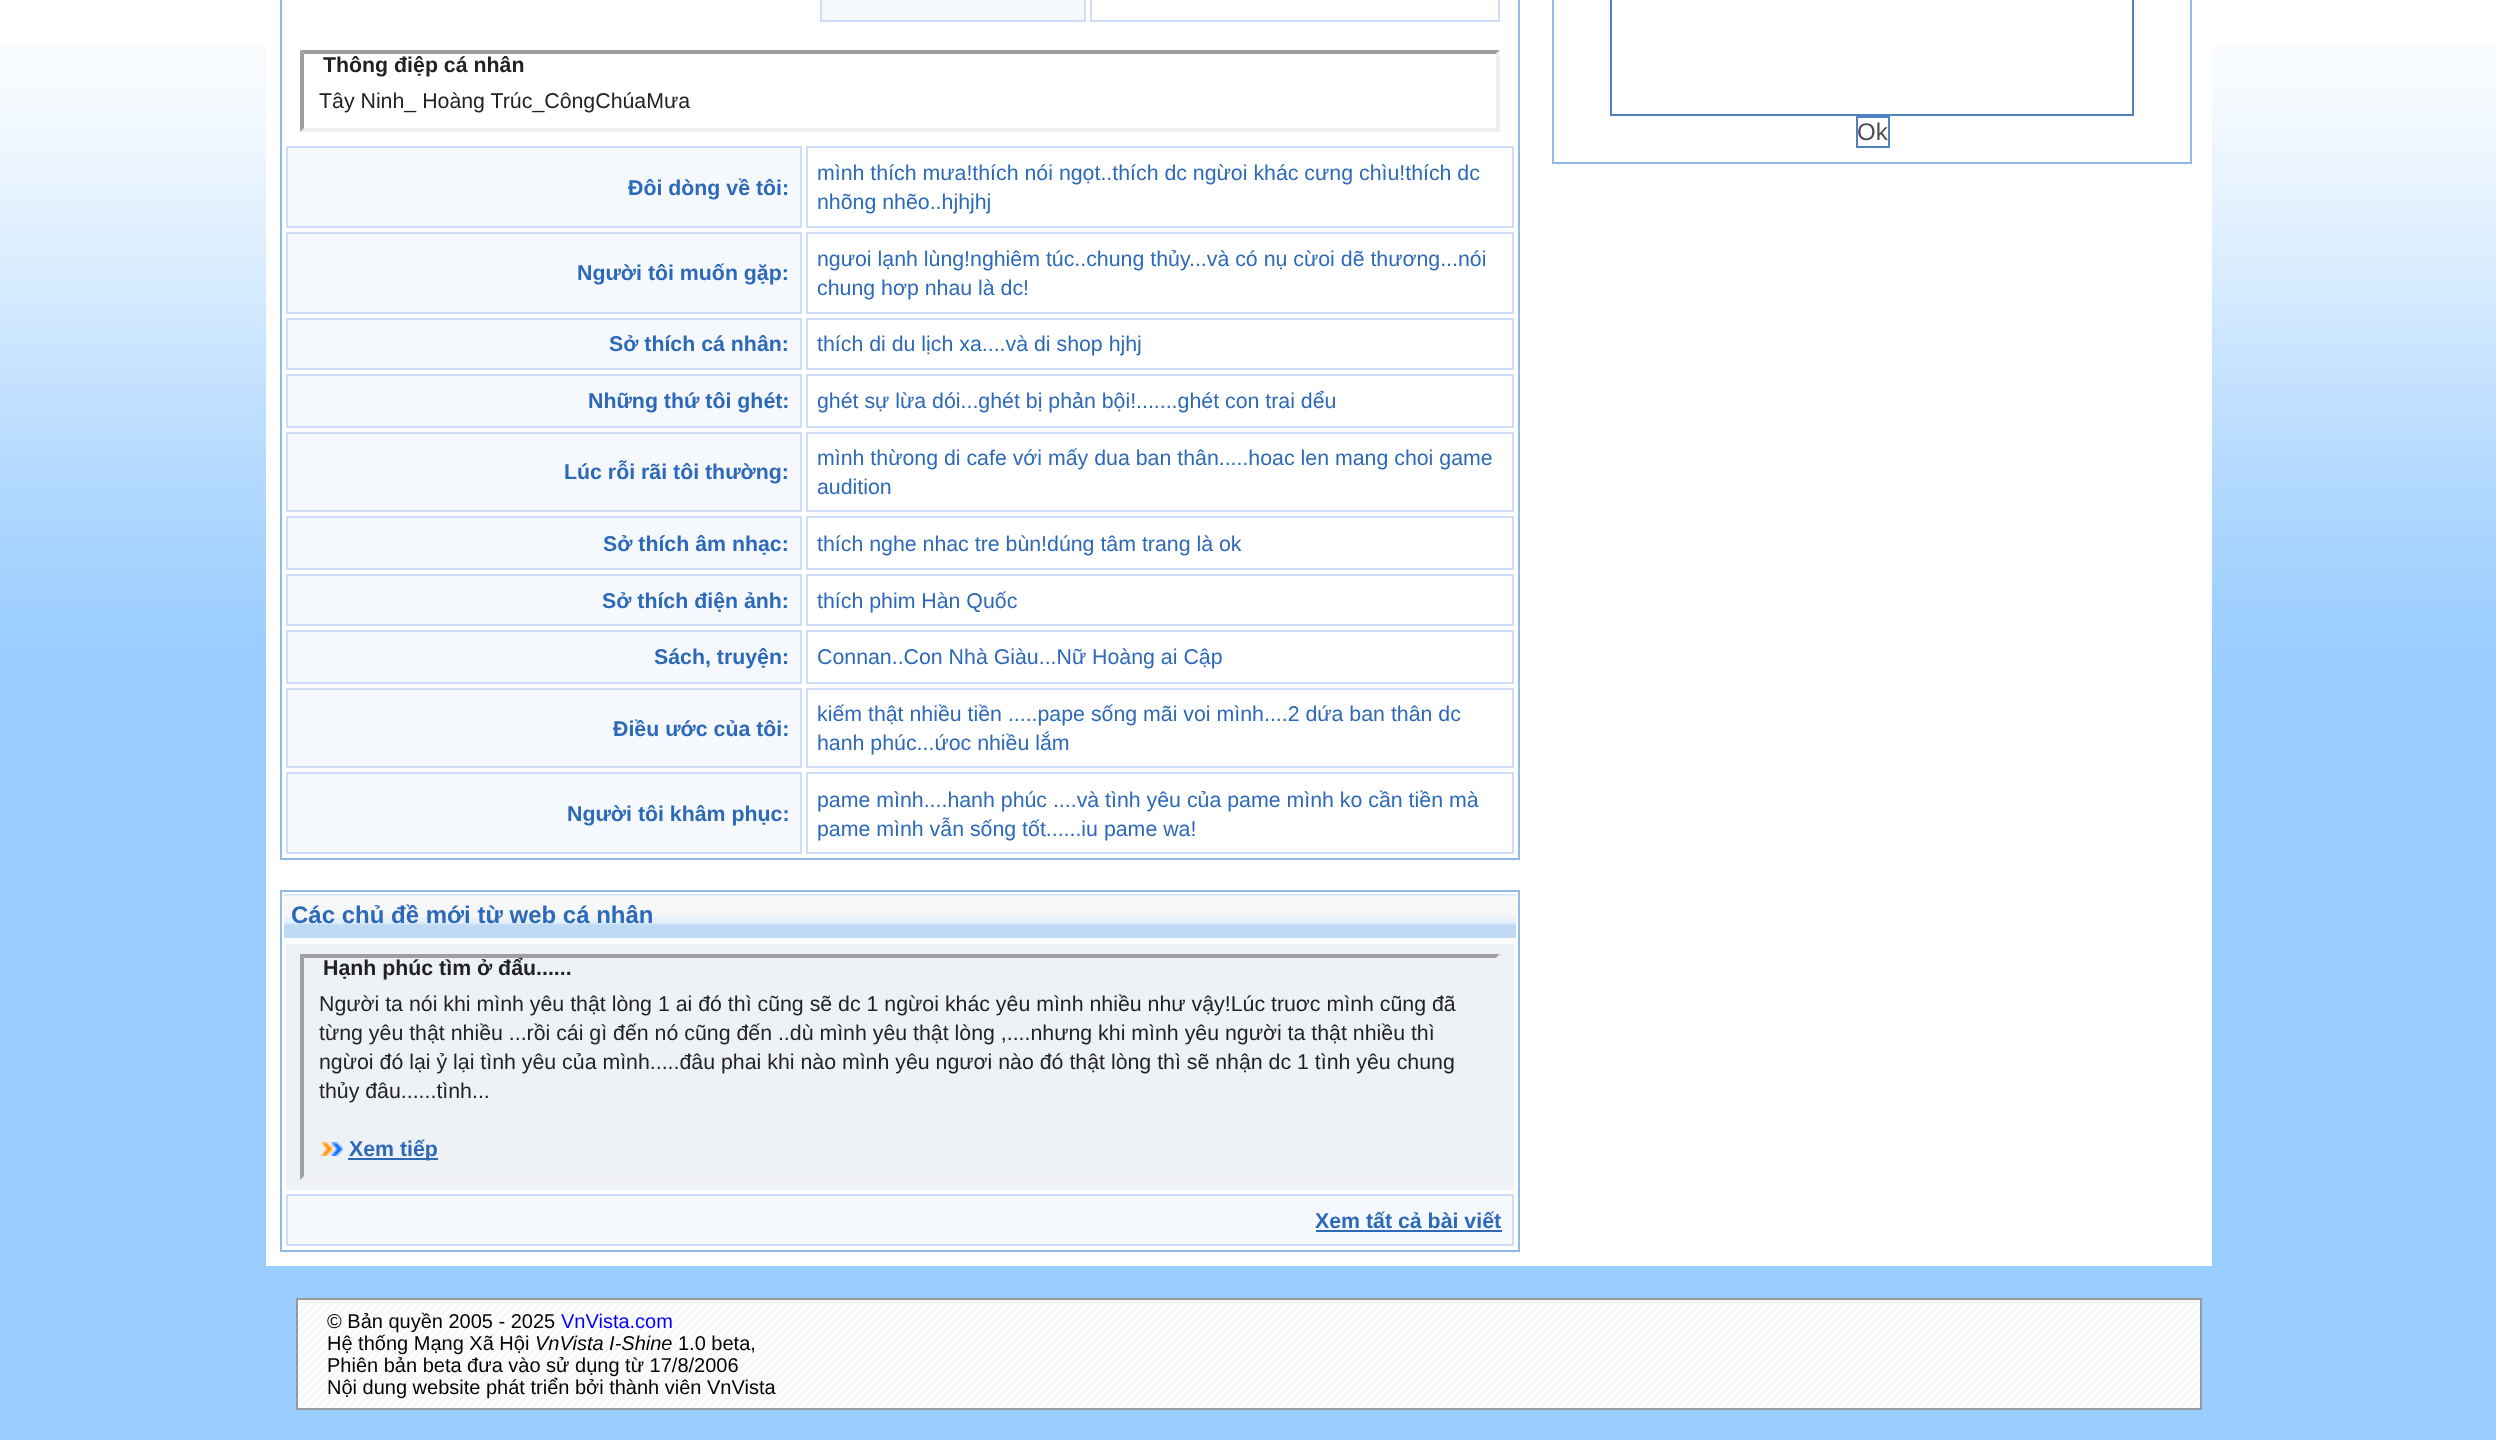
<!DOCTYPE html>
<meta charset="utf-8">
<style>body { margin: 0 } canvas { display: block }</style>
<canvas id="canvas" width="2496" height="1440"></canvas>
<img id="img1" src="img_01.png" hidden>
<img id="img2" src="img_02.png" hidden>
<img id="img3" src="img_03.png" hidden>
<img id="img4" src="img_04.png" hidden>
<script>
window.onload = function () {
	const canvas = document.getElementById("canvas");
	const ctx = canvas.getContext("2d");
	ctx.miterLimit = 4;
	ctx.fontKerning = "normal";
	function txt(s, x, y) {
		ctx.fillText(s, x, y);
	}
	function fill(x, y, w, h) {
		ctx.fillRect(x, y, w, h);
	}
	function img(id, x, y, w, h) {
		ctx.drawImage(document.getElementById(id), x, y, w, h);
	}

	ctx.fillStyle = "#FFFFFF";
	fill(0, 0, 2496, 1440);
	img("img1", 0, 46, 2496, 1394);
	fill(266, 46, 1946, 1220);
	ctx.strokeStyle = "#92BAE6";
	ctx.lineWidth = 2;
	ctx.strokeRect(281, -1, 1238, 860);
	ctx.fillStyle = "#F5F9FE";
	ctx.beginPath();
	ctx.rect(821, -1, 264, 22);
	ctx.fill();
	ctx.strokeStyle = "#CEDCFA";
	ctx.stroke();
	ctx.strokeRect(1091, -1, 408, 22);
	ctx.fillStyle = "#9F9F9F";
	ctx.beginPath();
	ctx.moveTo(300, 50);
	ctx.lineTo(1500, 50);
	ctx.lineTo(1496, 54);
	ctx.lineTo(304, 54);
	ctx.closePath();
	ctx.fill();
	ctx.fillStyle = "#EFEFEF";
	ctx.beginPath();
	ctx.moveTo(1500, 50);
	ctx.lineTo(1500, 132);
	ctx.lineTo(1496, 128);
	ctx.lineTo(1496, 54);
	ctx.closePath();
	ctx.fill();
	ctx.beginPath();
	ctx.moveTo(1500, 132);
	ctx.lineTo(300, 132);
	ctx.lineTo(304, 128);
	ctx.lineTo(1496, 128);
	ctx.closePath();
	ctx.fill();
	ctx.fillStyle = "#9F9F9F";
	ctx.beginPath();
	ctx.moveTo(300, 132);
	ctx.lineTo(300, 50);
	ctx.lineTo(304, 54);
	ctx.lineTo(304, 128);
	ctx.closePath();
	ctx.fill();
	ctx.fillStyle = "#F5F9FE";
	ctx.beginPath();
	ctx.rect(287, 147, 514, 80);
	ctx.fill();
	ctx.stroke();
	ctx.strokeRect(807, 147, 706, 80);
	ctx.beginPath();
	ctx.rect(287, 233, 514, 80);
	ctx.fill();
	ctx.stroke();
	ctx.strokeRect(807, 233, 706, 80);
	ctx.beginPath();
	ctx.rect(287, 319, 514, 50);
	ctx.fill();
	ctx.stroke();
	ctx.strokeRect(807, 319, 706, 50);
	ctx.beginPath();
	ctx.rect(287, 375, 514, 52);
	ctx.fill();
	ctx.stroke();
	ctx.strokeRect(807, 375, 706, 52);
	ctx.beginPath();
	ctx.rect(287, 433, 514, 78);
	ctx.fill();
	ctx.stroke();
	ctx.strokeRect(807, 433, 706, 78);
	ctx.beginPath();
	ctx.rect(287, 517, 514, 52);
	ctx.fill();
	ctx.stroke();
	ctx.strokeRect(807, 517, 706, 52);
	ctx.beginPath();
	ctx.rect(287, 575, 514, 50);
	ctx.fill();
	ctx.stroke();
	ctx.strokeRect(807, 575, 706, 50);
	ctx.beginPath();
	ctx.rect(287, 631, 514, 52);
	ctx.fill();
	ctx.stroke();
	ctx.strokeRect(807, 631, 706, 52);
	ctx.beginPath();
	ctx.rect(287, 689, 514, 78);
	ctx.fill();
	ctx.stroke();
	ctx.strokeRect(807, 689, 706, 78);
	ctx.beginPath();
	ctx.rect(287, 773, 514, 80);
	ctx.fill();
	ctx.stroke();
	ctx.strokeRect(807, 773, 706, 80);
	ctx.strokeStyle = "#92BAE6";
	ctx.strokeRect(281, 891, 1238, 360);
	img("img2", 284, 894, 1232, 44);
	ctx.fillStyle = "#EEF2F7";
	fill(286, 944, 1228, 246);
	ctx.fillStyle = "#9F9F9F";
	ctx.beginPath();
	ctx.moveTo(300, 954);
	ctx.lineTo(1500, 954);
	ctx.lineTo(1496, 958);
	ctx.lineTo(304, 958);
	ctx.closePath();
	ctx.fill();
	ctx.fillStyle = "#EFEFEF";
	ctx.beginPath();
	ctx.moveTo(1500, 954);
	ctx.lineTo(1500, 1180);
	ctx.lineTo(1496, 1176);
	ctx.lineTo(1496, 958);
	ctx.closePath();
	ctx.fill();
	ctx.beginPath();
	ctx.moveTo(1500, 1180);
	ctx.lineTo(300, 1180);
	ctx.lineTo(304, 1176);
	ctx.lineTo(1496, 1176);
	ctx.closePath();
	ctx.fill();
	ctx.fillStyle = "#9F9F9F";
	ctx.beginPath();
	ctx.moveTo(300, 1180);
	ctx.lineTo(300, 954);
	ctx.lineTo(304, 958);
	ctx.lineTo(304, 1176);
	ctx.closePath();
	ctx.fill();
	img("img3", 320, 1142, 24, 14);
	ctx.fillStyle = "#2D69B9";
	fill(348, 1158, 90, 2);
	ctx.fillStyle = "#F5F9FE";
	ctx.beginPath();
	ctx.rect(287, 1195, 1226, 50);
	ctx.fill();
	ctx.strokeStyle = "#CEDCFA";
	ctx.stroke();
	ctx.fillStyle = "#2D69B9";
	fill(1316, 1230, 186, 2);
	ctx.strokeStyle = "#92BAE6";
	ctx.strokeRect(1553, -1, 638, 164);
	ctx.strokeStyle = "#5182C2";
	ctx.strokeRect(1611, -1, 522, 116);
	ctx.strokeRect(1857, 117, 32, 30);
	img("img4", 298, 1300, 1902, 108);
	ctx.strokeStyle = "#999999";
	ctx.strokeRect(297, 1299, 1904, 110);
	ctx.font = "bold 21.33px Liberation Sans";
	ctx.fillStyle = "#222222";
	txt("Thông điệp cá nhân", 323, 72);
	ctx.font = "21.33px Liberation Sans";
	txt("Tây Ninh_ Hoàng Trúc_CôngChúaMưa", 319, 108);
	ctx.font = "bold 21.33px Liberation Sans";
	ctx.fillStyle = "#2D69B9";
	txt("Đôi dòng về tôi:", 628, 195);
	ctx.font = "21.33px Liberation Sans";
	txt("mình thích mưa!thích nói ngọt..thích dc ngừoi khác cưng chìu!thích dc", 817, 180);
	txt("nhõng nhẽo..hjhjhj", 817, 209);
	ctx.font = "bold 21.33px Liberation Sans";
	txt("Người tôi muốn gặp:", 577, 280);
	ctx.font = "21.33px Liberation Sans";
	txt("ngưoi lạnh lùng!nghiêm túc..chung thủy...và có nụ cừoi dẽ thương...nói", 817, 266);
	txt("chung hơp nhau là dc!", 817, 295);
	ctx.font = "bold 21.33px Liberation Sans";
	txt("Sở thích cá nhân:", 609, 351);
	ctx.font = "21.33px Liberation Sans";
	txt("thích di du lịch xa....và di shop hjhj", 817, 351);
	ctx.font = "bold 21.33px Liberation Sans";
	txt("Những thứ tôi ghét:", 588, 408);
	ctx.font = "21.33px Liberation Sans";
	txt("ghét sự lừa dói...ghét bị phản bội!.......ghét con trai dểu", 817, 408);
	ctx.font = "bold 21.33px Liberation Sans";
	txt("Lúc rỗi rãi tôi thường:", 564, 479);
	ctx.font = "21.33px Liberation Sans";
	txt("mình thừong di cafe với mấy dua ban thân.....hoac len mang choi game", 817, 465);
	txt("audition", 817, 494);
	ctx.font = "bold 21.33px Liberation Sans";
	txt("Sở thích âm nhạc:", 603, 551);
	ctx.font = "21.33px Liberation Sans";
	txt("thích nghe nhac tre bùn!dúng tâm trang là ok", 817, 551);
	ctx.font = "bold 21.33px Liberation Sans";
	txt("Sở thích điện ảnh:", 602, 608);
	ctx.font = "21.33px Liberation Sans";
	txt("thích phim Hàn Quốc", 817, 608);
	ctx.font = "bold 21.33px Liberation Sans";
	txt("Sách, truyện:", 654, 664);
	ctx.font = "21.33px Liberation Sans";
	txt("Connan..Con Nhà Giàu...Nữ Hoàng ai Cập", 817, 664);
	ctx.font = "bold 21.33px Liberation Sans";
	txt("Điều ước của tôi:", 613, 736);
	ctx.font = "21.33px Liberation Sans";
	txt("kiếm thật nhiều tiền .....pape sống mãi voi mình....2 dứa ban thân dc", 817, 721);
	txt("hanh phúc...ứoc nhiều lắm", 817, 750);
	ctx.font = "bold 21.33px Liberation Sans";
	txt("Người tôi khâm phục:", 567, 821);
	ctx.font = "21.33px Liberation Sans";
	txt("pame mình....hanh phúc ....và tình yêu của pame mình ko cần tiền mà", 817, 807);
	txt("pame mình vẫn sống tốt......iu pame wa!", 817, 836);
	ctx.font = "bold 24px Liberation Sans";
	txt("Các chủ đề mới từ web cá nhân", 291, 923);
	ctx.font = "bold 21.33px Liberation Sans";
	ctx.fillStyle = "#222222";
	txt("Hạnh phúc tìm ở đẩu......", 323, 975);
	ctx.font = "21.33px Liberation Sans";
	txt("Người ta nói khi mình yêu thật lòng 1 ai đó thì cũng sẽ dc 1 ngừoi khác yêu mình nhiều như vậy!Lúc truơc mình cũng đã", 319, 1011);
	txt("từng yêu thật nhiều ...rồi cái gì đến nó cũng đến ..dù mình yêu thật lòng ,....nhưng khi mình yêu người ta thật nhiều thì", 319, 1040);
	txt("ngừoi đó lại ỷ lại tình yêu của mình.....đâu phai khi nào mình yêu ngươi nào đó thật lòng thì sẽ nhận dc 1 tình yêu chung", 319, 1069);
	txt("thủy đâu......tình...", 319, 1098);
	ctx.font = "bold 21.33px Liberation Sans";
	ctx.fillStyle = "#2D69B9";
	txt("Xem tiếp", 349, 1156);
	txt("Xem tất cả bài viết", 1315, 1228);
	ctx.font = "24px Liberation Sans";
	ctx.fillStyle = "#4D4D4D";
	txt("Ok", 1857, 140);
	ctx.font = "20px Liberation Sans";
	ctx.fillStyle = "#000000";
	txt("© Bản quyền 2005 - 2025", 327, 1328);
	ctx.fillStyle = "#0000FF";
	txt("VnVista.com", 561, 1328);
	ctx.fillStyle = "#000000";
	txt("Hệ thống Mạng Xã Hội", 327, 1350);
	ctx.font = "italic 20px Liberation Sans";
	txt("VnVista I-Shine", 535, 1350);
	ctx.font = "20px Liberation Sans";
	txt("1.0 beta,", 678, 1350);
	txt("Phiên bản beta đưa vào sử dụng từ 17/8/2006", 327, 1372);
	txt("Nội dung website phát triển bởi thành viên VnVista", 327, 1394);
};
</script>
